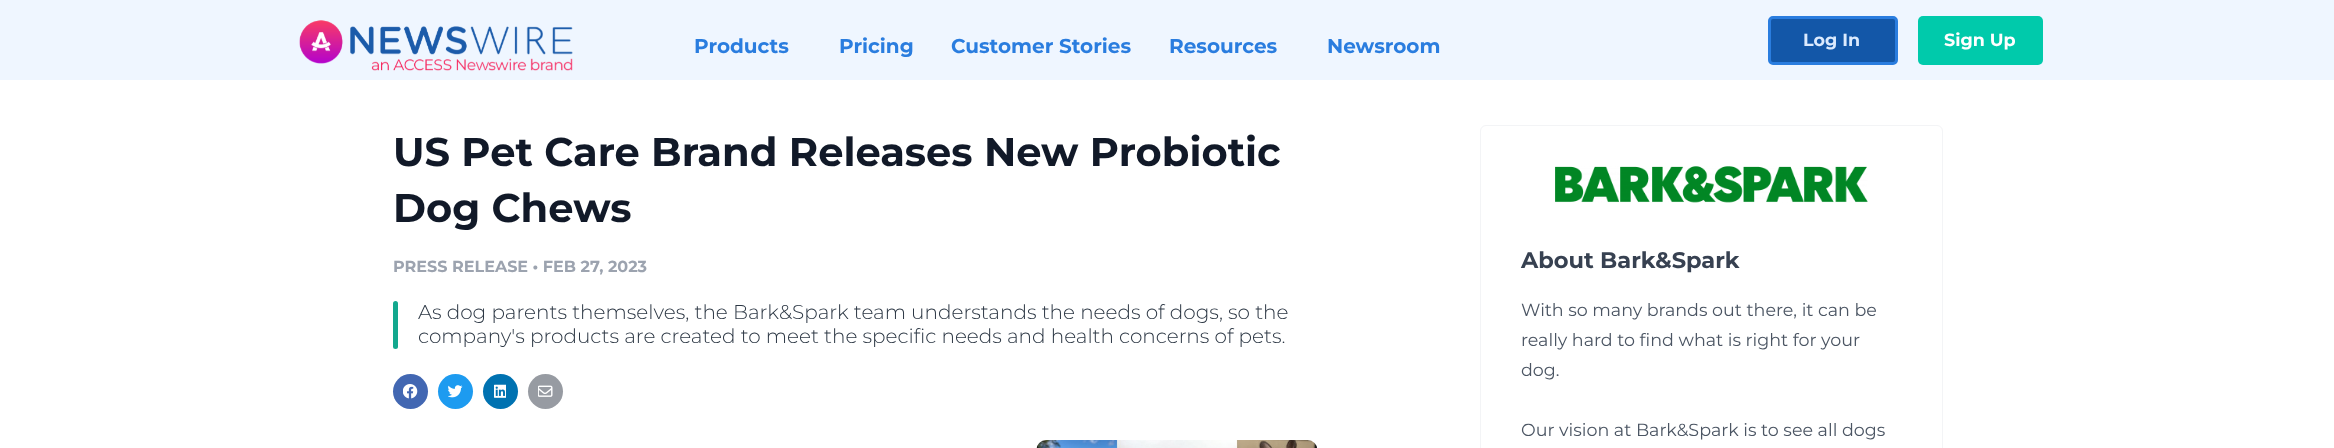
<!DOCTYPE html>
<meta charset="utf-8">
<style>body { margin: 0 } canvas { display: block }</style>
<canvas id="canvas" width="2334" height="448"></canvas>
<img id="img1" src="img_01.png" hidden>
<img id="img2" src="img_02.png" hidden>
<img id="img3" src="img_03.png" hidden>
<img id="img4" src="img_04.png" hidden>
<img id="img5" src="img_05.png" hidden>
<img id="img6" src="img_06.png" hidden>
<img id="img7" src="img_07.png" hidden>
<script>
window.onload = function () {
	const canvas = document.getElementById("canvas");
	const ctx = canvas.getContext("2d");
	ctx.miterLimit = 4;
	ctx.fontKerning = "normal";
	function txt(s, x, y) {
		ctx.fillText(s, x, y);
	}
	function fill(x, y, w, h) {
		ctx.fillRect(x, y, w, h);
	}
	function round(x, y, w, h, r) {
		ctx.beginPath();
		ctx.roundRect(x, y, w, h, r);
		ctx.fill();
	}
	function img(id, x, y, w, h) {
		ctx.drawImage(document.getElementById(id), x, y, w, h);
	}

	ctx.fillStyle = "#FFFFFF";
	fill(0, 0, 2334, 448);
	ctx.fillStyle = "#EFF6FF";
	fill(0, 0, 2334, 80);
	img("img1", 299, 20, 274, 51);
	ctx.fillStyle = "#1357A8";
	ctx.beginPath();
	ctx.roundRect(1769.5, 17.5, 127, 46, 3.5);
	ctx.fill();
	ctx.strokeStyle = "#2A7DDF";
	ctx.lineWidth = 3;
	ctx.stroke();
	ctx.fillStyle = "#00CAAB";
	round(1918, 16, 125, 49, 5);
	ctx.fillStyle = "#13A88E";
	round(393, 301, 5, 48, 2.5);
	ctx.fillStyle = "#4267B2";
	ctx.beginPath();
	ctx.arc(410.5, 391.5, 17.5, 0, Math.PI * 2);
	ctx.fill();
	img("img2", 403, 384, 15, 15);
	ctx.fillStyle = "#1D9BF0";
	ctx.beginPath();
	ctx.arc(455.5, 391.5, 17.5, 0, Math.PI * 2);
	ctx.fill();
	img("img3", 448, 385, 15, 13);
	ctx.fillStyle = "#0072B1";
	ctx.beginPath();
	ctx.arc(500.5, 391.5, 17.5, 0, Math.PI * 2);
	ctx.fill();
	img("img4", 494, 384, 12, 14);
	ctx.fillStyle = "#979BA2";
	ctx.beginPath();
	ctx.arc(545.5, 391.5, 17.5, 0, Math.PI * 2);
	ctx.fill();
	img("img5", 538, 385, 15, 12);
	img("img6", 1036, 440, 281, 8);
	ctx.beginPath();
	ctx.roundRect(1480.5, 125.5, 462, 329, 5.5);
	ctx.strokeStyle = "#F3F4F6";
	ctx.lineWidth = 1;
	ctx.stroke();
	img("img7", 1555, 166, 313, 37);
	ctx.font = "bold 20px Montserrat";
	ctx.fillStyle = "#2A7DDF";
	txt("Products", 694, 53);
	txt("Pricing", 839, 53);
	txt("Customer Stories", 951, 53);
	txt("Resources", 1169, 53);
	txt("Newsroom", 1327, 53);
	ctx.font = "bold 17.5px Montserrat";
	ctx.fillStyle = "#DBEAFE";
	txt("Log In", 1803, 46);
	ctx.fillStyle = "#FFFFFF";
	txt("Sign Up", 1944, 46);
	ctx.font = "bold 40px Montserrat";
	ctx.fillStyle = "#111928";
	txt("US Pet Care Brand Releases New Probiotic", 393, 166);
	txt("Dog Chews", 393, 222);
	ctx.font = "bold 16px Montserrat";
	ctx.fillStyle = "#9CA3AF";
	txt("PRESS RELEASE • FEB 27, 2023", 393, 272);
	ctx.font = "300 20px Montserrat";
	ctx.fillStyle = "#2C3744";
	txt("As dog parents themselves, the Bark&Spark team understands the needs of dogs, so the", 418, 319);
	txt("company's products are created to meet the specific needs and health concerns of pets.", 418, 343);
	ctx.font = "bold 22.5px Montserrat";
	ctx.fillStyle = "#374151";
	txt("About Bark&Spark", 1521, 268);
	ctx.font = "17.5px Montserrat";
	ctx.fillStyle = "#4B5563";
	txt("With so many brands out there, it can be", 1521, 316);
	txt("really hard to find what is right for your", 1521, 346);
	txt("dog.", 1521, 376);
	txt("Our vision at Bark&Spark is to see all dogs", 1521, 436);
};
</script>
